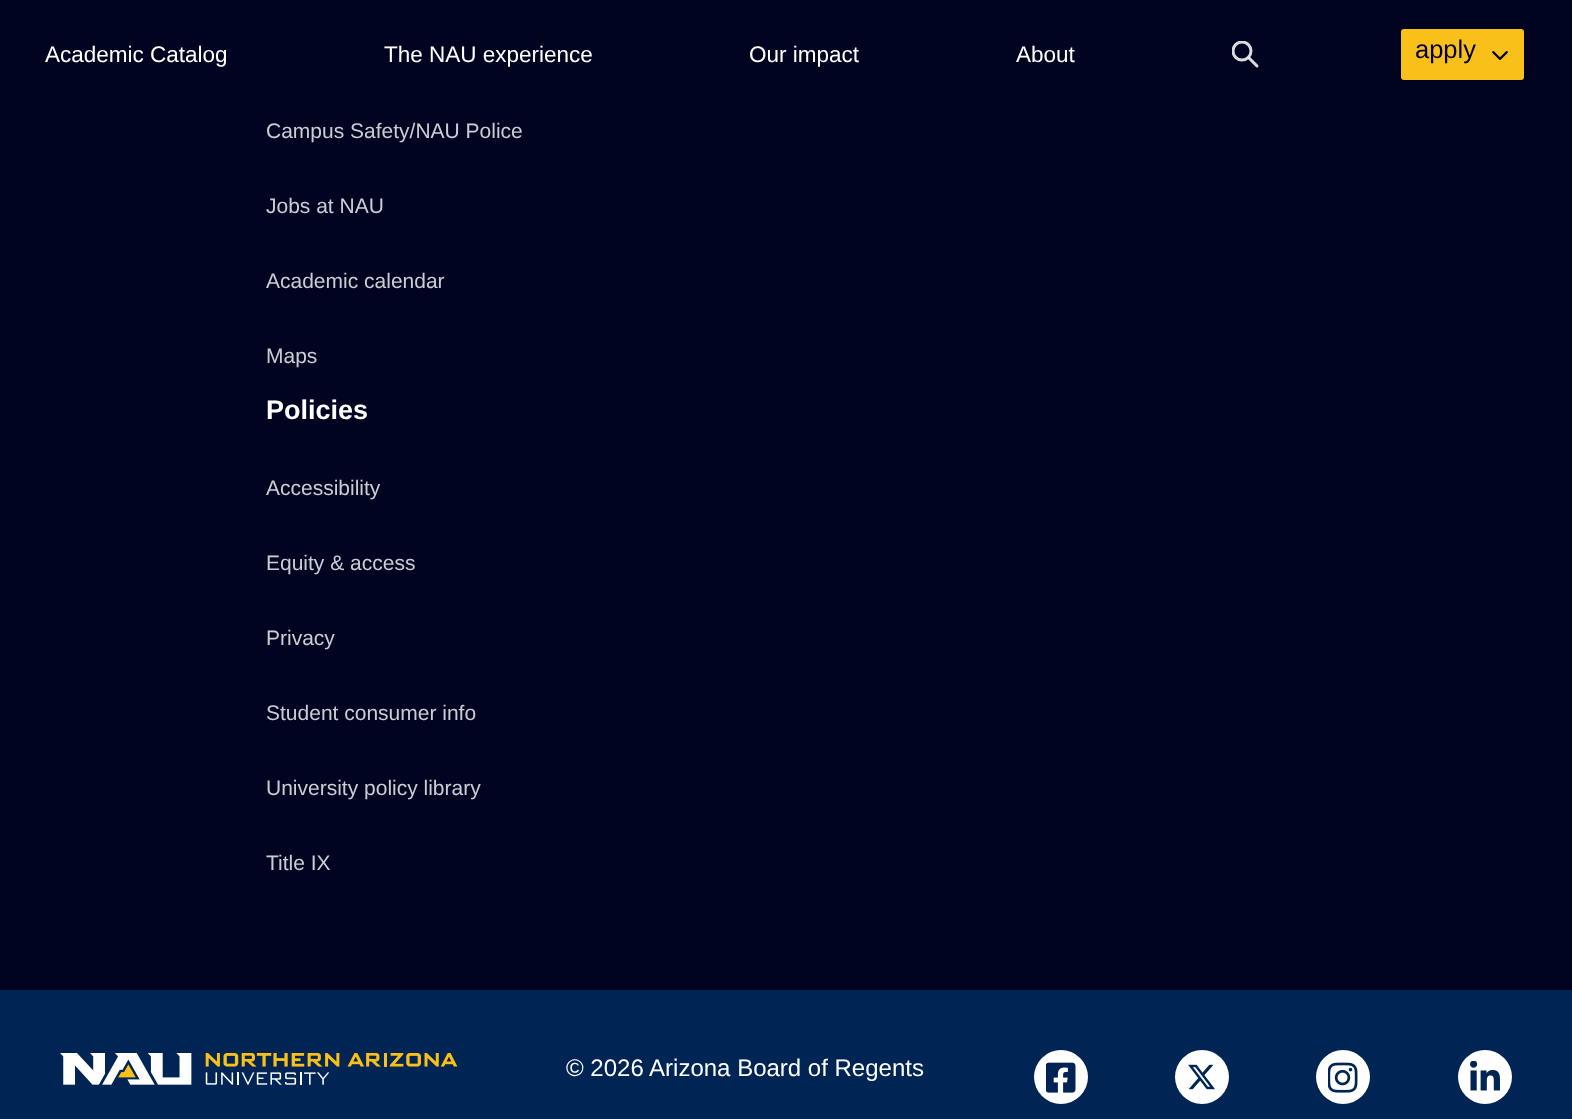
<!DOCTYPE html>
<meta charset="utf-8">
<style>body { margin: 0 } canvas { display: block }</style>
<canvas id="canvas" width="1572" height="1119"></canvas>
<img id="img1" src="img_01.png" hidden>
<img id="img2" src="img_02.png" hidden>
<img id="img3" src="img_03.png" hidden>
<img id="img4" src="img_04.png" hidden>
<img id="img5" src="img_05.png" hidden>
<img id="img6" src="img_06.png" hidden>
<script>
window.onload = function () {
	const canvas = document.getElementById("canvas");
	const ctx = canvas.getContext("2d");
	ctx.miterLimit = 4;
	ctx.fontKerning = "normal";
	function txt(s, x, y) {
		ctx.fillText(s, x, y);
	}
	function fill(x, y, w, h) {
		ctx.fillRect(x, y, w, h);
	}
	function round(x, y, w, h, r) {
		ctx.beginPath();
		ctx.roundRect(x, y, w, h, r);
		ctx.fill();
	}
	function img(id, x, y, w, h) {
		ctx.drawImage(document.getElementById(id), x, y, w, h);
	}

	ctx.fillStyle = "#000421";
	fill(0, 0, 1572, 1119);
	ctx.save();
	ctx.beginPath();
	ctx.rect(1232, 41, 27, 27);
	ctx.clip();
	ctx.beginPath();
	ctx.arc(1242, 51, 9, 0, Math.PI * 2);
	ctx.strokeStyle = "#DBDBDF";
	ctx.lineWidth = 3;
	ctx.stroke();
	ctx.restore();
	ctx.beginPath();
	ctx.moveTo(1249.5, 58.5);
	ctx.lineTo(1257, 66);
	ctx.strokeStyle = "rgba(255, 255, 255, 0.86)";
	ctx.lineWidth = 3;
	ctx.lineCap = "round";
	ctx.stroke();
	ctx.fillStyle = "#FAC01A";
	round(1401, 29, 123, 51, 3);
	img("img1", 1492, 51, 16, 9);
	ctx.fillStyle = "#002454";
	fill(0, 990, 1572, 129);
	img("img2", 60, 1053, 398, 32);
	ctx.fillStyle = "#FFFFFF";
	ctx.beginPath();
	ctx.arc(1061, 1077, 27, 0, Math.PI * 2);
	ctx.fill();
	img("img3", 1046, 1062, 30, 31);
	ctx.beginPath();
	ctx.arc(1202, 1077, 27, 0, Math.PI * 2);
	ctx.fill();
	img("img4", 1188, 1064, 27, 26);
	ctx.beginPath();
	ctx.arc(1343, 1077, 27, 0, Math.PI * 2);
	ctx.fill();
	img("img5", 1328, 1062, 30, 31);
	ctx.beginPath();
	ctx.arc(1485, 1077, 27, 0, Math.PI * 2);
	ctx.fill();
	img("img6", 1470, 1061, 30, 30);
	ctx.font = "22.5px Liberation Sans";
	txt("Academic Catalog", 45, 62);
	txt("The NAU experience", 384, 62);
	txt("Our impact", 749, 62);
	txt("About", 1016, 62);
	ctx.font = "25.5px Liberation Sans";
	ctx.fillStyle = "#000421";
	txt("apply", 1415, 58);
	ctx.font = "21px Liberation Sans";
	ctx.fillStyle = "#CCCDD3";
	txt("Campus Safety/NAU Police", 266, 138);
	txt("Jobs at NAU", 266, 213);
	txt("Academic calendar", 266, 288);
	txt("Maps", 266, 363);
	ctx.font = "bold 27px Liberation Sans";
	ctx.fillStyle = "#FFFFFF";
	txt("Policies", 266, 419);
	ctx.font = "21px Liberation Sans";
	ctx.fillStyle = "#CCCDD3";
	txt("Accessibility", 266, 495);
	txt("Equity & access", 266, 570);
	txt("Privacy", 266, 645);
	txt("Student consumer info", 266, 720);
	txt("University policy library", 266, 795);
	txt("Title IX", 266, 870);
	ctx.font = "24px Liberation Sans";
	ctx.fillStyle = "#FFFFFF";
	txt("© 2026 Arizona Board of Regents", 566, 1076);
};
</script>
